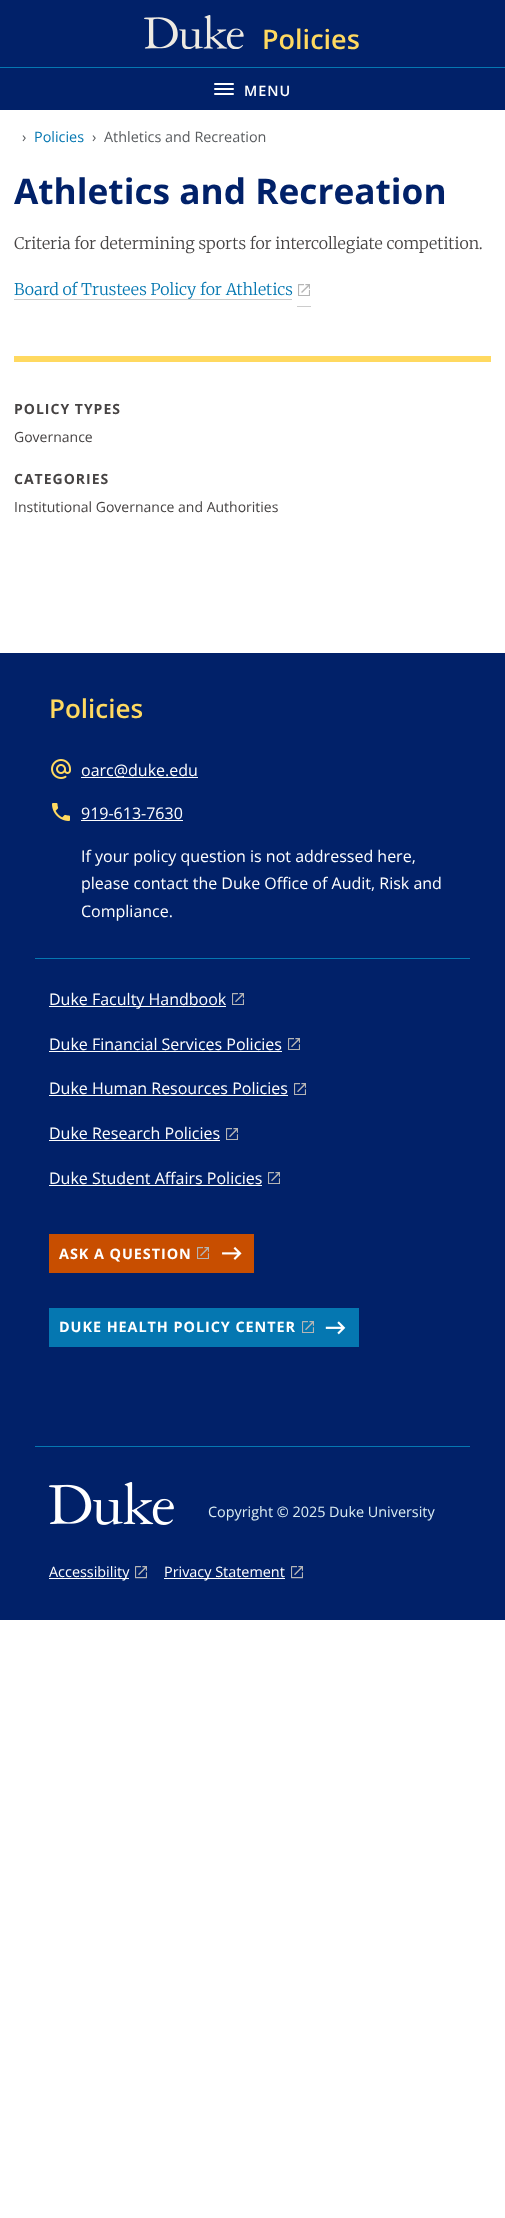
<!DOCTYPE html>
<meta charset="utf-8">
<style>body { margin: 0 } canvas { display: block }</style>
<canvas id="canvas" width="505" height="2218"></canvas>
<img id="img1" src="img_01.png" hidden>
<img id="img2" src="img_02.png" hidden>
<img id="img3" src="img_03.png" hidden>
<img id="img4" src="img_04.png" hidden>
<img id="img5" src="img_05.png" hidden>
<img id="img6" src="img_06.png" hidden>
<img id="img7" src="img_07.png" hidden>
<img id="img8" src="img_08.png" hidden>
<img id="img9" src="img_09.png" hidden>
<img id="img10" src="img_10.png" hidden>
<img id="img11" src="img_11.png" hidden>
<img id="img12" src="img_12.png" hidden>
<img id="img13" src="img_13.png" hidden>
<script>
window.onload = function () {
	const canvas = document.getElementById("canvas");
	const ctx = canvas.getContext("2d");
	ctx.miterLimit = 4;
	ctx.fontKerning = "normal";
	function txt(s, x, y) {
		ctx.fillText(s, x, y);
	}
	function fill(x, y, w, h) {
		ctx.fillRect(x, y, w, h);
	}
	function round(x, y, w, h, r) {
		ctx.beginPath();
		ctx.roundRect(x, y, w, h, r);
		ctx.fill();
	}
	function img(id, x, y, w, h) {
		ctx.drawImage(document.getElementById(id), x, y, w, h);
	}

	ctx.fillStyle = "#FFFFFF";
	fill(0, 0, 505, 2218);
	ctx.fillStyle = "#012169";
	fill(0, 0, 505, 110);
	img("img1", 144, 15, 100, 34);
	ctx.fillStyle = "#0577B1";
	fill(0, 67, 505, 1);
	ctx.fillStyle = "#FFFFFF";
	round(214, 88, 20, 2, 1);
	round(214, 83, 20, 2, 1);
	round(214, 93, 20, 2, 1);
	ctx.fillStyle = "#CCCCCC";
	fill(14, 299, 278, 1);
	fill(297, 306, 14, 1);
	img("img2", 298, 284, 12, 12);
	ctx.fillStyle = "#FFD960";
	fill(14, 356, 477, 6);
	ctx.fillStyle = "#012169";
	fill(0, 653, 505, 967);
	ctx.fillStyle = "#0577B1";
	fill(35, 958, 435, 1);
	img("img3", 51, 759, 20, 20);
	ctx.fillStyle = "#FFFFFF";
	fill(81, 777, 117, 1);
	img("img4", 52, 803, 18, 18);
	fill(81, 820, 102, 1);
	fill(49, 1006, 177, 1);
	img("img5", 232, 993, 12, 12);
	fill(49, 1051, 233, 1);
	img("img6", 288, 1038, 12, 12);
	fill(49, 1095, 239, 1);
	img("img6", 294, 1083, 12, 12);
	fill(49, 1140, 171, 1);
	img("img5", 226, 1128, 12, 12);
	fill(49, 1185, 213, 1);
	img("img6", 268, 1172, 12, 12);
	ctx.fillStyle = "#C84E00";
	fill(49, 1234, 205, 39);
	img("img7", 197, 1247, 12, 12);
	img("img8", 222, 1247, 20, 13);
	ctx.fillStyle = "#0577B1";
	fill(49, 1308, 310, 39);
	img("img9", 302, 1321, 12, 12);
	img("img10", 325, 1321, 21, 14);
	fill(35, 1446, 435, 1);
	img("img11", 49, 1482, 125, 43);
	ctx.fillStyle = "#FFFFFF";
	fill(49, 1578, 80, 1);
	img("img12", 135, 1566, 12, 13);
	fill(164, 1578, 121, 1);
	img("img13", 291, 1566, 12, 13);
	ctx.font = "600 27px Open Sans";
	ctx.fillStyle = "#FFD960";
	txt("Policies", 262, 49);
	ctx.letterSpacing = "1px";
	ctx.font = "600 14.4px Open Sans";
	ctx.fillStyle = "#FFFFFF";
	txt("MENU", 244, 96);
	ctx.letterSpacing = "0px";
	ctx.font = "14.4px Open Sans";
	ctx.fillStyle = "#595C5F";
	txt("›", 22, 142);
	ctx.fillStyle = "#0577B1";
	txt("Policies", 34, 142);
	ctx.fillStyle = "#595C5F";
	txt("›", 92, 142);
	txt("Athletics and Recreation", 104, 142);
	ctx.font = "bold 35.25px Open Sans";
	ctx.fillStyle = "#012169";
	txt("Athletics and Recreation", 14, 204);
	ctx.font = "300 16px Merriweather";
	ctx.fillStyle = "#464343";
	txt("Criteria for determining sports for intercollegiate competition.", 14, 249);
	ctx.fillStyle = "#0577B1";
	txt("Board of Trustees Policy for Athletics", 14, 295);
	ctx.letterSpacing = "1px";
	ctx.font = "bold 14px Open Sans";
	ctx.fillStyle = "#464343";
	txt("POLICY TYPES", 14, 414);
	ctx.letterSpacing = "0px";
	ctx.font = "14px Open Sans";
	txt("Governance", 14, 442);
	ctx.letterSpacing = "1px";
	ctx.font = "bold 14px Open Sans";
	txt("CATEGORIES", 14, 484);
	ctx.letterSpacing = "0px";
	ctx.font = "14px Open Sans";
	txt("Institutional Governance and Authorities", 14, 512);
	ctx.font = "600 26px Open Sans";
	ctx.fillStyle = "#FFD960";
	txt("Policies", 49, 718);
	ctx.font = "16px Open Sans";
	ctx.fillStyle = "#FFFFFF";
	txt("oarc@duke.edu", 81, 776);
	txt("919-613-7630", 81, 819);
	txt("If your policy question is not addressed here,", 81, 862);
	txt("please contact the Duke Office of Audit, Risk and", 81, 889);
	txt("Compliance.", 81, 917);
	txt("Duke Faculty Handbook", 49, 1005);
	txt("Duke Financial Services Policies", 49, 1050);
	txt("Duke Human Resources Policies", 49, 1094);
	txt("Duke Research Policies", 49, 1139);
	txt("Duke Student Affairs Policies", 49, 1184);
	ctx.letterSpacing = "0.95px";
	ctx.font = "bold 14.4px Open Sans";
	txt("ASK A QUESTION", 59, 1259);
	txt("DUKE HEALTH POLICY CENTER", 59, 1332);
	ctx.letterSpacing = "0px";
	ctx.font = "14.4px Open Sans";
	ctx.fillStyle = "#DBEDF2";
	txt("Copyright © 2025 Duke University", 208, 1517);
	ctx.fillStyle = "#FFFFFF";
	txt("Accessibility", 49, 1577);
	txt("Privacy Statement", 164, 1577);
};
</script>
